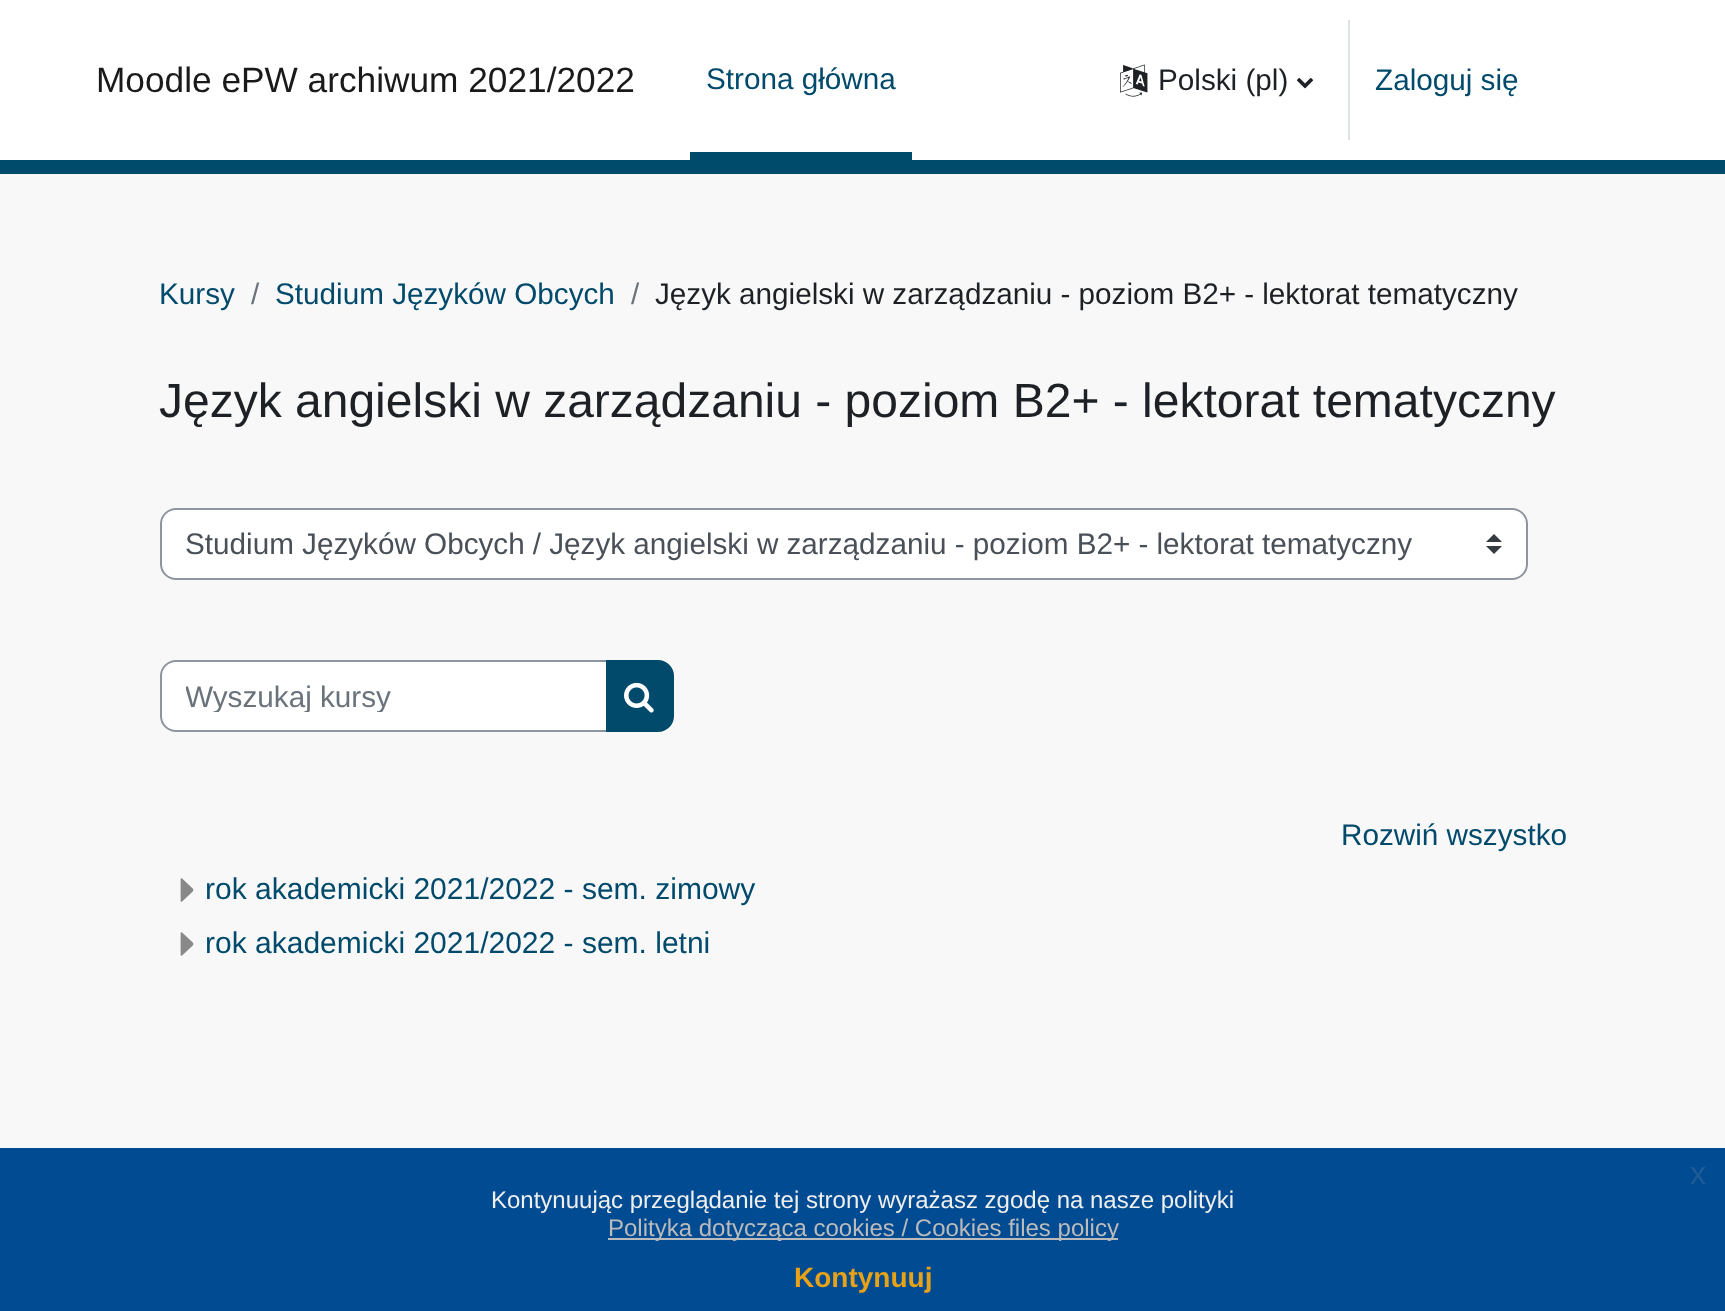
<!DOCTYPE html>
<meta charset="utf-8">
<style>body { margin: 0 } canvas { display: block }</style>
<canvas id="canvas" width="1725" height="1311"></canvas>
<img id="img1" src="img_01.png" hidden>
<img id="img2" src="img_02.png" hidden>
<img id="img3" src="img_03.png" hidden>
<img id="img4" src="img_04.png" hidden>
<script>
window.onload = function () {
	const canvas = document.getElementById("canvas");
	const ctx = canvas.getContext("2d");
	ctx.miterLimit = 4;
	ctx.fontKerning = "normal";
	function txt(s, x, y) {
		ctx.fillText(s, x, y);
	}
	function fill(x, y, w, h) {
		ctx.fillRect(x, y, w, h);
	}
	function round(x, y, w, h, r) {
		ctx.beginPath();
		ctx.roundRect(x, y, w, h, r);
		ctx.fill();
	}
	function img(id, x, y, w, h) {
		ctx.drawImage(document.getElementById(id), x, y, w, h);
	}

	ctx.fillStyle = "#F8F8F8";
	fill(0, 0, 1725, 1311);
	ctx.fillStyle = "#FFFFFF";
	fill(0, 0, 1725, 160);
	ctx.fillStyle = "#004A6C";
	fill(0, 160, 1725, 14);
	fill(690, 152, 222, 8);
	img("img1", 1120, 64, 28, 33);
	img("img2", 1296, 78, 18, 11);
	ctx.fillStyle = "#DEE2E6";
	fill(1348, 20, 2, 120);
	ctx.fillStyle = "#FFFFFF";
	round(160, 508, 1368, 72, 16);
	ctx.fillStyle = "#343A40";
	ctx.beginPath();
	ctx.moveTo(1494, 534);
	ctx.lineTo(1486, 542);
	ctx.lineTo(1502, 542);
	ctx.closePath();
	ctx.moveTo(1494, 554);
	ctx.lineTo(1486, 546);
	ctx.lineTo(1502, 546);
	ctx.closePath();
	ctx.fill();
	ctx.beginPath();
	ctx.roundRect(161, 509, 1366, 70, 15);
	ctx.strokeStyle = "#8F959E";
	ctx.lineWidth = 2;
	ctx.stroke();
	ctx.fillStyle = "#FFFFFF";
	ctx.beginPath();
	ctx.roundRect(161, 661, 446, 70, [15, 0, 0, 15]);
	ctx.fill();
	ctx.stroke();
	ctx.fillStyle = "#014A6C";
	ctx.beginPath();
	ctx.roundRect(607, 661, 66, 70, [0, 15, 15, 0]);
	ctx.fill();
	ctx.strokeStyle = "#014A6C";
	ctx.stroke();
	img("img3", 624, 682, 30, 31);
	img("img4", 180, 878, 14, 24);
	img("img4", 180, 932, 14, 24);
	ctx.fillStyle = "#004B91";
	fill(0, 1148, 1725, 163);
	ctx.fillStyle = "#BBBBBB";
	fill(608, 1238, 510, 2);
	ctx.font = "35.25px Liberation Sans";
	ctx.fillStyle = "#1A1A1A";
	txt("Moodle ePW archiwum 2021/2022", 96, 92);
	ctx.font = "29.7px Liberation Sans";
	ctx.fillStyle = "#014A6C";
	txt("Strona główna", 706, 89);
	ctx.fillStyle = "#1D2125";
	txt("Polski (pl)", 1158, 90);
	ctx.fillStyle = "#014A6C";
	txt("Zaloguj się", 1375, 90);
	txt("Kursy", 159, 304);
	ctx.fillStyle = "#6A737B";
	txt("/", 251, 304);
	ctx.fillStyle = "#014A6C";
	txt("Studium Języków Obcych", 275, 304);
	ctx.fillStyle = "#6A737B";
	txt("/", 631, 304);
	ctx.wordSpacing = "-0.1px";
	ctx.fillStyle = "#1D2125";
	txt("Język angielski w zarządzaniu - poziom B2+ - lektorat tematyczny", 655, 304);
	ctx.wordSpacing = "0px";
	ctx.font = "48px Liberation Sans";
	txt("Język angielski w zarządzaniu - poziom B2+ - lektorat tematyczny", 159, 417);
	ctx.wordSpacing = "-0.1px";
	ctx.font = "29.7px Liberation Sans";
	ctx.fillStyle = "#495057";
	txt("Studium Języków Obcych / Język angielski w zarządzaniu - poziom B2+ - lektorat tematyczny", 185, 554);
	ctx.save();
	ctx.beginPath();
	ctx.rect(186, 680, 396, 32);
	ctx.clip();
	ctx.wordSpacing = "0px";
	ctx.fillStyle = "#6A737B";
	txt("Wyszukaj kursy", 185, 707);
	ctx.restore();
	ctx.wordSpacing = "0px";
	ctx.fillStyle = "#014A6C";
	txt("Rozwiń wszystko", 1341, 845);
	ctx.font = "30px Liberation Sans";
	txt("rok akademicki 2021/2022 - sem. zimowy", 205, 899);
	txt("rok akademicki 2021/2022 - sem. letni", 205, 953);
	ctx.font = "32px Liberation Sans";
	ctx.fillStyle = "#205C94";
	txt("x", 1690, 1184);
	ctx.font = "24px Liberation Sans";
	ctx.fillStyle = "#EFEFEF";
	txt("Kontynuując przeglądanie tej strony wyrażasz zgodę na nasze polityki", 491, 1208);
	ctx.fillStyle = "#BBBBBB";
	txt("Polityka dotycząca cookies / Cookies files policy", 608, 1236);
	ctx.font = "bold 28px Liberation Sans";
	ctx.fillStyle = "#E7A217";
	txt("Kontynuuj", 794, 1287);
};
</script>
